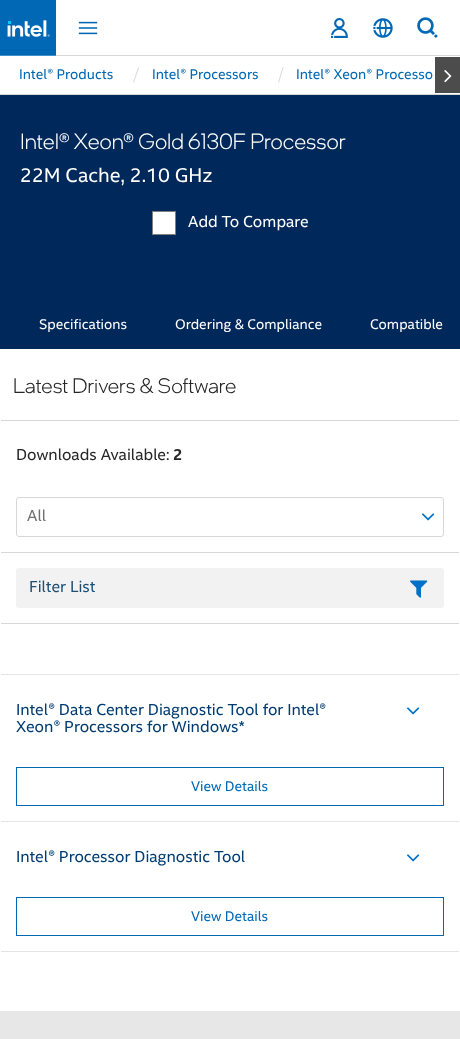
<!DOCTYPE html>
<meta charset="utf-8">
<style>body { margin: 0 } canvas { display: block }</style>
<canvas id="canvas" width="460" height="1039"></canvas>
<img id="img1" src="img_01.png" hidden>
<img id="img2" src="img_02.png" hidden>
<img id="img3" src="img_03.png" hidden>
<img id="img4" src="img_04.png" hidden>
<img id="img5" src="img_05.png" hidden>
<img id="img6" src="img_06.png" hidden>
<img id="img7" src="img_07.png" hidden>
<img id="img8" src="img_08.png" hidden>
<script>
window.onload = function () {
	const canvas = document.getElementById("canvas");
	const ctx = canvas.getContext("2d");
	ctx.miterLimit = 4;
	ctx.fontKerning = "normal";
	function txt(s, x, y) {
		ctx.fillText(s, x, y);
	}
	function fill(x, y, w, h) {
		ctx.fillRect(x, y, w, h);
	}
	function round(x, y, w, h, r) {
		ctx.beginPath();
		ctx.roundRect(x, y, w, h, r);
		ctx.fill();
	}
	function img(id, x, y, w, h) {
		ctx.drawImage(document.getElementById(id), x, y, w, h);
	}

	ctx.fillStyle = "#FFFFFF";
	fill(0, 0, 460, 1039);
	ctx.fillStyle = "#D7D7D7";
	fill(56, 55, 404, 1);
	ctx.fillStyle = "#0068B5";
	fill(0, 0, 56, 55);
	img("img1", 7, 20, 43, 17);
	ctx.fillStyle = "#4290CB";
	fill(0, 55, 56, 1);
	img("img2", 78, 21, 20, 14);
	img("img3", 331, 18, 17, 20);
	img("img4", 373, 18, 20, 20);
	img("img5", 417, 17, 21, 21);
	ctx.fillStyle = "#D7D7D7";
	fill(0, 94, 460, 1);
	ctx.beginPath();
	ctx.moveTo(138, 67.5);
	ctx.lineTo(139, 67.5);
	ctx.lineTo(134, 82.5);
	ctx.lineTo(133, 82.5);
	ctx.closePath();
	ctx.fill();
	ctx.beginPath();
	ctx.moveTo(282.5, 67.5);
	ctx.lineTo(283.5, 67.5);
	ctx.lineTo(279, 82.5);
	ctx.lineTo(278, 82.5);
	ctx.closePath();
	ctx.fill();
	ctx.fillStyle = "rgba(0, 0, 0, 0.7)";
	fill(435, 57, 25, 36);
	img("img6", 444, 70, 8, 13);
	ctx.fillStyle = "#00285A";
	fill(0, 95, 460, 254);
	ctx.fillStyle = "#FFFFFF";
	ctx.beginPath();
	ctx.rect(152.5, 211.5, 23, 23);
	ctx.fill();
	ctx.strokeStyle = "#808080";
	ctx.stroke();
	ctx.fillStyle = "#D7D7D7";
	fill(1, 420, 458, 1);
	fill(1, 623, 458, 1);
	ctx.beginPath();
	ctx.roundRect(16.5, 497.5, 427, 39, 2.5);
	ctx.strokeStyle = "#D7D7D7";
	ctx.stroke();
	img("img7", 422, 513, 13, 8);
	fill(1, 552, 458, 1);
	ctx.fillStyle = "#F2F2F2";
	round(16, 568, 428, 40, 3);
	img("img8", 410, 580, 18, 18);
	ctx.fillStyle = "#E4E4E4";
	fill(1, 674, 458, 1);
	fill(1, 821, 458, 1);
	img("img7", 407, 707, 13, 8);
	ctx.strokeStyle = "#0068B5";
	ctx.strokeRect(16.5, 767.5, 427, 38);
	fill(1, 951, 458, 1);
	img("img7", 407, 854, 13, 8);
	ctx.strokeRect(16.5, 897.5, 427, 38);
	ctx.fillStyle = "#E7E7E7";
	fill(0, 1011, 460, 28);
	ctx.font = "14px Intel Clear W";
	ctx.fillStyle = "#0068B5";
	txt("Intel® Products", 19, 79);
	txt("Intel® Processors", 152, 79);
	txt("Intel® Xeon® Processo", 296, 79);
	ctx.font = "300 22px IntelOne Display";
	ctx.fillStyle = "#FFFFFF";
	txt("Intel® Xeon® Gold 6130F Processor", 20, 149);
	ctx.font = "20px Intel Clear W";
	txt("22M Cache, 2.10 GHz", 20, 182);
	ctx.font = "16px Intel Clear W";
	txt("Add To Compare", 188, 227);
	ctx.font = "14px Intel Clear W";
	txt("Specifications", 39, 329);
	txt("Ordering & Compliance", 175, 329);
	txt("Compatible", 370, 329);
	ctx.font = "300 21px IntelOne Display";
	ctx.fillStyle = "#262626";
	txt("Latest Drivers & Software", 13, 393);
	ctx.font = "16px Intel Clear W";
	txt("Downloads Available:", 16, 460);
	ctx.font = "bold 16px Intel Clear W";
	txt("2", 173, 460);
	ctx.font = "16px Intel Clear W";
	ctx.fillStyle = "#707070";
	txt("All", 27, 521);
	ctx.fillStyle = "#1D4F76";
	txt("Filter List", 29, 592);
	ctx.fillStyle = "#003C71";
	txt("Intel® Data Center Diagnostic Tool for Intel®", 16, 715);
	txt("Xeon® Processors for Windows*", 16, 732);
	ctx.font = "14px Intel Clear W";
	ctx.fillStyle = "#0068B5";
	txt("View Details", 191, 791);
	ctx.font = "16px Intel Clear W";
	ctx.fillStyle = "#003C71";
	txt("Intel® Processor Diagnostic Tool", 16, 862);
	ctx.font = "14px Intel Clear W";
	ctx.fillStyle = "#0068B5";
	txt("View Details", 191, 921);
};
</script>
